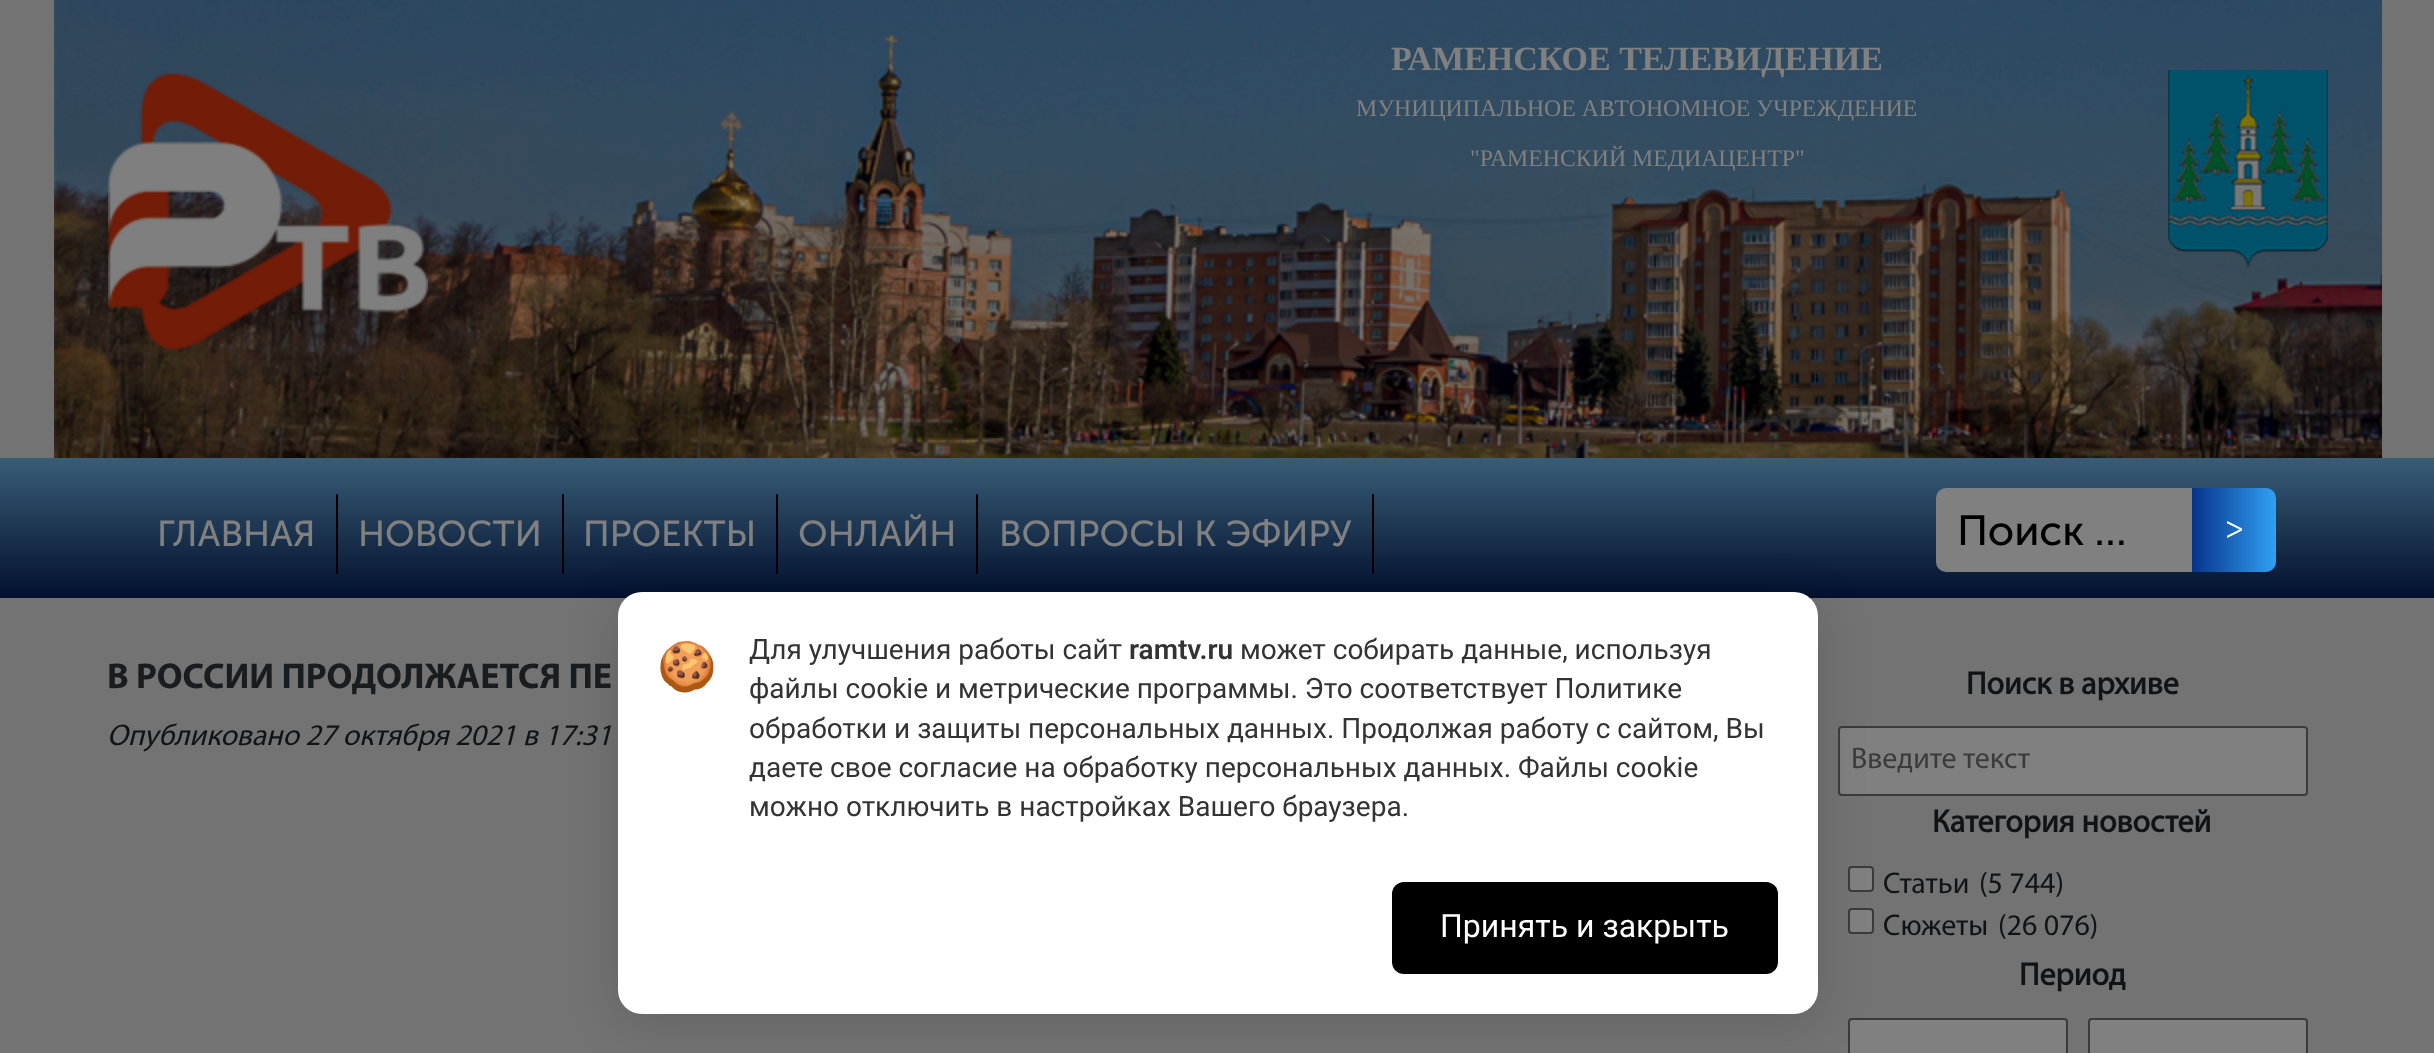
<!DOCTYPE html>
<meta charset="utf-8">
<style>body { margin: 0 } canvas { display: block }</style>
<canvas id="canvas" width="2434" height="1053"></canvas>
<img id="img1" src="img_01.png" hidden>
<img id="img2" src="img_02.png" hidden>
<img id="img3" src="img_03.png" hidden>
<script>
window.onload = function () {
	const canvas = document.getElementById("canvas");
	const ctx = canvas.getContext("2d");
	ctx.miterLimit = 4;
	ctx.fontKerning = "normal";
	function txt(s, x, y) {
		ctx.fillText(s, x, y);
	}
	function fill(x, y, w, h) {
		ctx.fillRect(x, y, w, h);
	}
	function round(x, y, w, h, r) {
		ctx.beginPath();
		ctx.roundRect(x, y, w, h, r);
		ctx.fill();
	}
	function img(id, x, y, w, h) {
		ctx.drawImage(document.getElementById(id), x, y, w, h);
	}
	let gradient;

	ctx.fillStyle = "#737373";
	fill(0, 0, 2434, 1053);
	img("img1", 54, 0, 2328, 458);
	img("img2", 108, 73, 320, 278);
	img("img3", 2168, 70, 160, 198);
	gradient = ctx.createLinearGradient(1217, 458, 1217, 598);
	gradient.addColorStop(0, "#395D77");
	gradient.addColorStop(1, "#02102E");
	ctx.fillStyle = gradient;
	fill(0, 458, 2434, 140);
	ctx.fillStyle = "#000000";
	fill(336, 494, 2, 80);
	fill(562, 494, 2, 80);
	fill(776, 494, 2, 80);
	fill(976, 494, 2, 80);
	fill(1372, 494, 2, 80);
	ctx.fillStyle = "#808080";
	round(1936, 488, 272, 84, 10);
	gradient = ctx.createLinearGradient(2276, 530, 2192, 530);
	gradient.addColorStop(0, "#30A1F2");
	gradient.addColorStop(1, "#07338D");
	ctx.fillStyle = gradient;
	ctx.beginPath();
	ctx.roundRect(2192, 488, 84, 84, [0, 10, 10, 0]);
	ctx.fill();
	ctx.fillStyle = "#808080";
	ctx.beginPath();
	ctx.roundRect(1839, 727, 468, 68, 3);
	ctx.fill();
	ctx.strokeStyle = "#3B3B3B";
	ctx.lineWidth = 2;
	ctx.stroke();
	ctx.beginPath();
	ctx.roundRect(1849, 867, 24, 24, 3);
	ctx.fill();
	ctx.stroke();
	ctx.beginPath();
	ctx.roundRect(1849, 909, 24, 24, 3);
	ctx.fill();
	ctx.stroke();
	ctx.beginPath();
	ctx.roundRect(1849, 1019, 218, 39, 3);
	ctx.fill();
	ctx.stroke();
	ctx.beginPath();
	ctx.roundRect(2089, 1019, 218, 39, 3);
	ctx.fill();
	ctx.stroke();
	ctx.fillStyle = "rgba(0, 0, 0, 0.15)";
	ctx.filter = "blur(24px)";
	ctx.beginPath();
	ctx.roundRect(618, 600, 1200, 422, 24);
	ctx.fill();
	ctx.filter = "none";
	ctx.fillStyle = "#FFFFFF";
	round(618, 592, 1200, 422, 24);
	ctx.fillStyle = "#000000";
	round(1392, 882, 386, 92, 12);
	ctx.font = "bold 34px Liberation Serif";
	ctx.fillStyle = "#808080";
	txt("РАМЕНСКОЕ ТЕЛЕВИДЕНИЕ", 1391, 70);
	ctx.font = "23.8px Liberation Serif";
	txt("МУНИЦИПАЛЬНОЕ АВТОНОМНОЕ УЧРЕЖДЕНИЕ", 1356, 116);
	txt("\"РАМЕНСКИЙ МЕДИАЦЕНТР\"", 1470, 166);
	ctx.font = "36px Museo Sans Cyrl";
	txt("ГЛАВНАЯ", 157, 546);
	txt("НОВОСТИ", 358, 546);
	txt("ПРОЕКТЫ", 583, 546);
	txt("ОНЛАЙН", 798, 546);
	txt("ВОПРОСЫ К ЭФИРУ", 999, 546);
	ctx.font = "42px Museo Sans Cyrl";
	ctx.fillStyle = "#000000";
	txt("Поиск …", 1957, 545);
	ctx.font = "32px Myriad";
	ctx.fillStyle = "#FFFFFF";
	txt(">", 2225, 538);
	ctx.font = "bold 36px Myriad";
	ctx.fillStyle = "#1A1D20";
	txt("В РОССИИ ПРОДОЛЖАЕТСЯ ПЕ", 107, 688);
	ctx.font = "italic 30px Myriad";
	ctx.fillStyle = "#111315";
	txt("Опубликовано 27 октября 2021 в 17:31", 107, 745);
	ctx.font = "bold 32px 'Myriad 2'";
	txt("Поиск в архиве", 1966, 694);
	ctx.font = "30px Myriad";
	ctx.fillStyle = "#3B3B3B";
	txt("Введите текст", 1851, 768);
	ctx.font = "bold 32px 'Myriad 2'";
	ctx.fillStyle = "#111315";
	txt("Категория новостей", 1932, 832);
	ctx.font = "30px Myriad";
	txt("Статьи", 1883, 893);
	txt("(5 744)", 1979, 893);
	txt("Сюжеты", 1883, 935);
	txt("(26 076)", 1998, 935);
	ctx.font = "bold 32px 'Myriad 2'";
	txt("Период", 2019, 985);
	ctx.font = "48px Noto Color Emoji";
	ctx.fillStyle = "#212529";
	txt("🍪", 657, 683);
	ctx.font = "28px Roboto";
	ctx.fillStyle = "#333333";
	txt("Для улучшения работы сайт", 749, 659);
	ctx.font = "600 28px Roboto";
	txt("ramtv.ru", 1129, 659);
	ctx.font = "28px Roboto";
	txt("может собирать данные, используя", 1240, 659);
	txt("файлы cookie и метрические программы. Это соответствует Политике", 749, 698);
	txt("обработки и защиты персональных данных. Продолжая работу с сайтом, Вы", 749, 738);
	txt("даете свое согласие на обработку персональных данных. Файлы cookie", 749, 777);
	txt("можно отключить в настройках Вашего браузера.", 749, 816);
	ctx.font = "32px Roboto";
	ctx.fillStyle = "#FFFFFF";
	txt("Принять и закрыть", 1440, 937);
};
</script>
